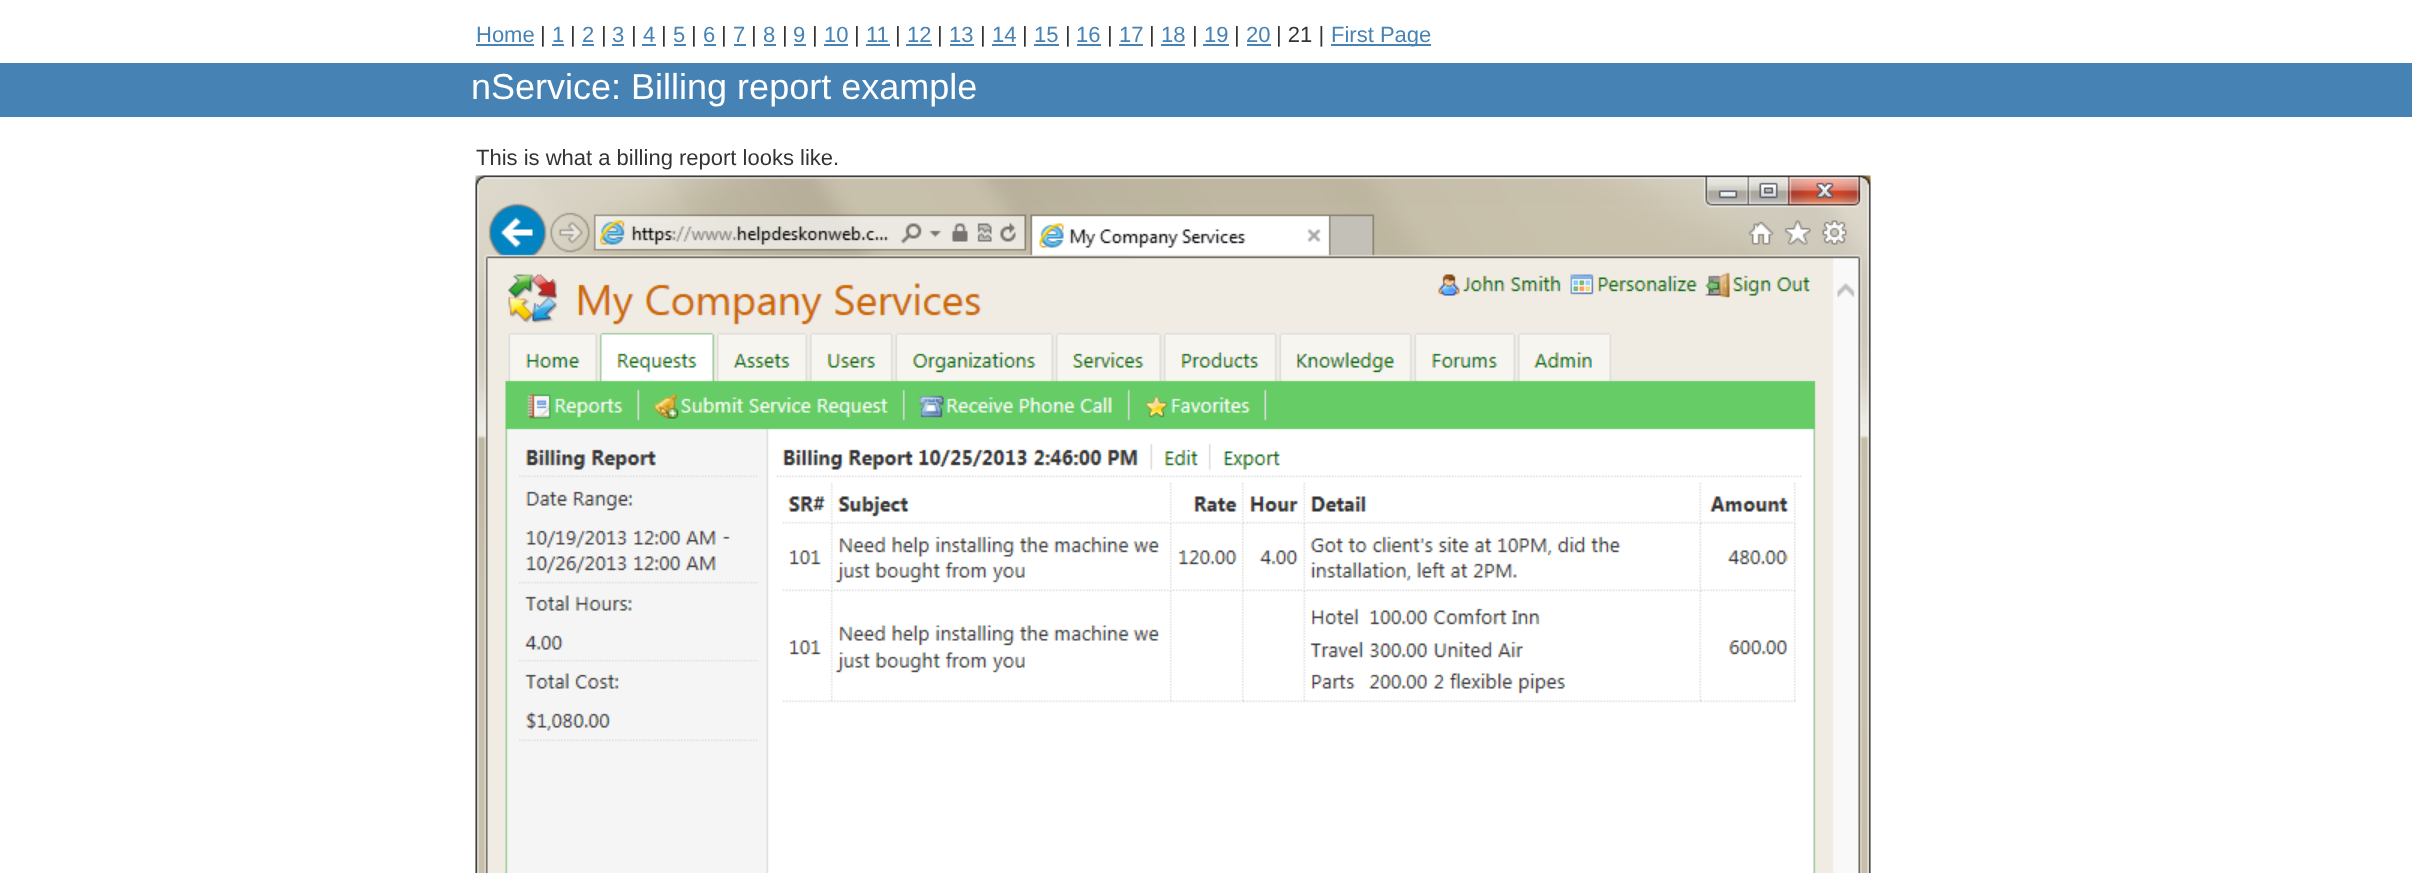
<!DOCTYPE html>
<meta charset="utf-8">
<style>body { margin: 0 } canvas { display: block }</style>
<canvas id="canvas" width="2412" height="873"></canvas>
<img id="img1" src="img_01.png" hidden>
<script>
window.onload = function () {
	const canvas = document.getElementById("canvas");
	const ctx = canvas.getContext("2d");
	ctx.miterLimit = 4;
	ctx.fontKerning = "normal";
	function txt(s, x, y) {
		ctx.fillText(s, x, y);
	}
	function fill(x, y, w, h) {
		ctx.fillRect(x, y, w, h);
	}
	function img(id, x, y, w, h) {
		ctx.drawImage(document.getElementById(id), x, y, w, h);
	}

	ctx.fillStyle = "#FFFFFF";
	fill(0, 0, 2412, 873);
	ctx.fillStyle = "#4682B4";
	fill(476, 44, 58, 2);
	fill(552, 44, 12, 2);
	fill(582, 44, 12, 2);
	fill(612, 44, 12, 2);
	fill(642, 44, 14, 2);
	fill(674, 44, 12, 2);
	fill(704, 44, 12, 2);
	fill(734, 44, 12, 2);
	fill(764, 44, 12, 2);
	fill(794, 44, 12, 2);
	fill(824, 44, 24, 2);
	fill(866, 44, 24, 2);
	fill(906, 44, 26, 2);
	fill(950, 44, 24, 2);
	fill(992, 44, 24, 2);
	fill(1034, 44, 25, 2);
	fill(1077, 44, 24, 2);
	fill(1119, 44, 24, 2);
	fill(1161, 44, 24, 2);
	fill(1203, 44, 26, 2);
	fill(1247, 44, 24, 2);
	fill(1331, 44, 100, 2);
	fill(0, 63, 2412, 54);
	img("img1", 475, 175, 1396, 698);
	ctx.font = "22px Liberation Sans";
	txt("Home", 476, 42);
	ctx.fillStyle = "#333333";
	txt("|", 540, 42);
	ctx.fillStyle = "#4682B4";
	txt("1", 552, 42);
	ctx.fillStyle = "#333333";
	txt("|", 570, 42);
	ctx.fillStyle = "#4682B4";
	txt("2", 582, 42);
	ctx.fillStyle = "#333333";
	txt("|", 601, 42);
	ctx.fillStyle = "#4682B4";
	txt("3", 612, 42);
	ctx.fillStyle = "#333333";
	txt("|", 631, 42);
	ctx.fillStyle = "#4682B4";
	txt("4", 643, 42);
	ctx.fillStyle = "#333333";
	txt("|", 661, 42);
	ctx.fillStyle = "#4682B4";
	txt("5", 673, 42);
	ctx.fillStyle = "#333333";
	txt("|", 691, 42);
	ctx.fillStyle = "#4682B4";
	txt("6", 703, 42);
	ctx.fillStyle = "#333333";
	txt("|", 721, 42);
	ctx.fillStyle = "#4682B4";
	txt("7", 733, 42);
	ctx.fillStyle = "#333333";
	txt("|", 751, 42);
	ctx.fillStyle = "#4682B4";
	txt("8", 763, 42);
	ctx.fillStyle = "#333333";
	txt("|", 782, 42);
	ctx.fillStyle = "#4682B4";
	txt("9", 793, 42);
	ctx.fillStyle = "#333333";
	txt("|", 812, 42);
	ctx.fillStyle = "#4682B4";
	txt("10", 824, 42);
	ctx.fillStyle = "#333333";
	txt("|", 854, 42);
	ctx.fillStyle = "#4682B4";
	txt("11", 866, 42);
	ctx.fillStyle = "#333333";
	txt("|", 895, 42);
	ctx.fillStyle = "#4682B4";
	txt("12", 907, 42);
	ctx.fillStyle = "#333333";
	txt("|", 937, 42);
	ctx.fillStyle = "#4682B4";
	txt("13", 949, 42);
	ctx.fillStyle = "#333333";
	txt("|", 980, 42);
	ctx.fillStyle = "#4682B4";
	txt("14", 992, 42);
	ctx.fillStyle = "#333333";
	txt("|", 1022, 42);
	ctx.fillStyle = "#4682B4";
	txt("15", 1034, 42);
	ctx.fillStyle = "#333333";
	txt("|", 1065, 42);
	ctx.fillStyle = "#4682B4";
	txt("16", 1076, 42);
	ctx.fillStyle = "#333333";
	txt("|", 1107, 42);
	ctx.fillStyle = "#4682B4";
	txt("17", 1119, 42);
	ctx.fillStyle = "#333333";
	txt("|", 1149, 42);
	ctx.fillStyle = "#4682B4";
	txt("18", 1161, 42);
	ctx.fillStyle = "#333333";
	txt("|", 1192, 42);
	ctx.fillStyle = "#4682B4";
	txt("19", 1204, 42);
	ctx.fillStyle = "#333333";
	txt("|", 1234, 42);
	ctx.fillStyle = "#4682B4";
	txt("20", 1246, 42);
	ctx.fillStyle = "#333333";
	txt("| 21 |", 1276, 42);
	ctx.fillStyle = "#4682B4";
	txt("First Page", 1331, 42);
	ctx.font = "36px Liberation Sans";
	ctx.fillStyle = "#FFFFFF";
	txt("nService: Billing report example", 471, 99);
	ctx.font = "22px Liberation Sans";
	ctx.fillStyle = "#333333";
	txt("This is what a billing report looks like.", 476, 165);
};
</script>
